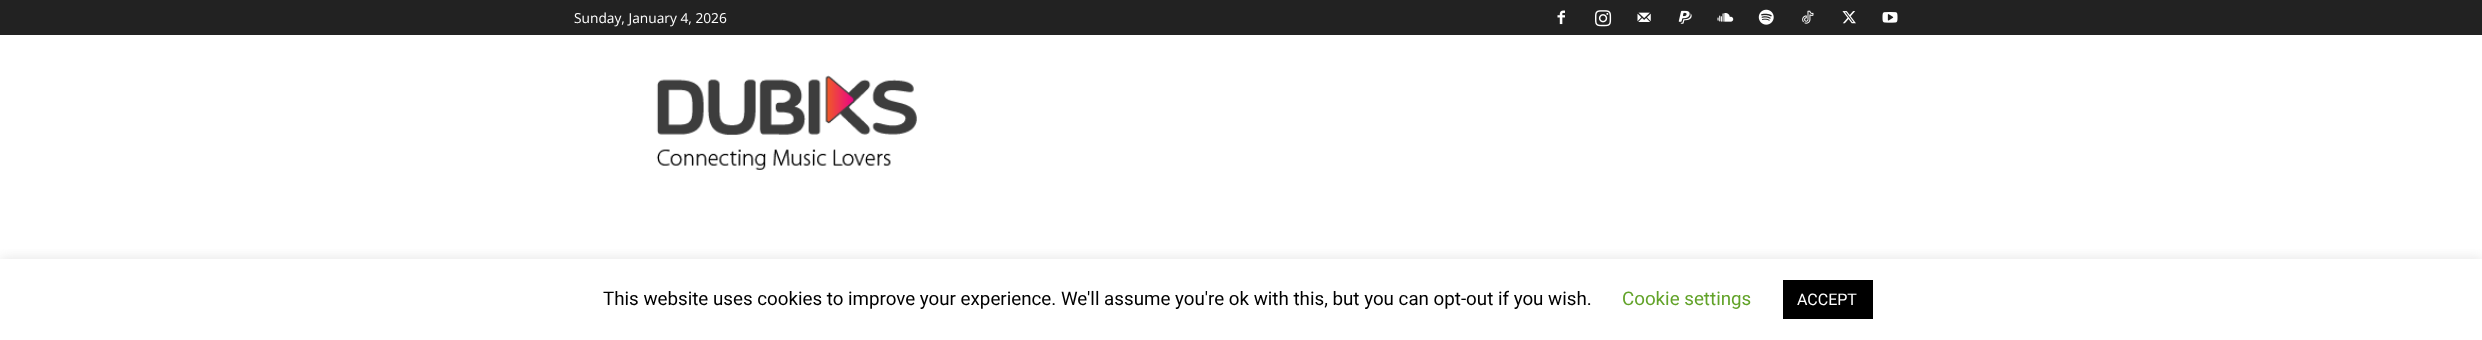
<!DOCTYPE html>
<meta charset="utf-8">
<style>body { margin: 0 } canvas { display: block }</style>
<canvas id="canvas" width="2482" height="340"></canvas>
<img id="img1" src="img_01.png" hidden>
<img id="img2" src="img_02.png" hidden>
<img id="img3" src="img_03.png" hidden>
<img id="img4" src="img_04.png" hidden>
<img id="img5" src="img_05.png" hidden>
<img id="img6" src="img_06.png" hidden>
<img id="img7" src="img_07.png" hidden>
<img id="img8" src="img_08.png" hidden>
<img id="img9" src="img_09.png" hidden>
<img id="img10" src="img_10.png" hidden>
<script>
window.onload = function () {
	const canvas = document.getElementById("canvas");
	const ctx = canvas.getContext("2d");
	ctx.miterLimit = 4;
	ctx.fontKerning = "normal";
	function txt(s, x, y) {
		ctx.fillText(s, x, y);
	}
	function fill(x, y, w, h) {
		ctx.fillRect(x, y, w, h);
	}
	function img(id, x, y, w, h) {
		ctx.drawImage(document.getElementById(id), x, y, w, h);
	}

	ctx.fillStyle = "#FFFFFF";
	fill(0, 0, 2482, 340);
	ctx.fillStyle = "#222222";
	fill(0, 0, 2482, 35);
	img("img1", 1557, 10, 8, 15);
	img("img2", 1595, 10, 17, 17);
	img("img3", 1637, 12, 14, 10);
	img("img4", 1678, 10, 14, 14);
	img("img5", 1717, 13, 17, 9);
	img("img6", 1758, 9, 16, 16);
	img("img7", 1802, 10, 12, 14);
	img("img8", 1842, 11, 14, 13);
	img("img9", 1882, 12, 16, 11);
	img("img10", 656, 75, 261, 95);
	ctx.save();
	ctx.beginPath();
	ctx.rect(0, 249, 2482, 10);
	ctx.clip();
	ctx.fillStyle = "rgba(172, 171, 171, 0.3)";
	ctx.filter = "blur(6px)";
	ctx.beginPath();
	ctx.rect(0, 258, 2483, 81);
	ctx.fill();
	ctx.filter = "none";
	ctx.restore();
	ctx.fillStyle = "#000000";
	fill(1783, 280, 90, 39);
	ctx.font = "13.75px Open Sans";
	ctx.fillStyle = "#FFFFFF";
	txt("Sunday, January 4, 2026", 574, 23);
	ctx.font = "18.75px Roboto";
	ctx.fillStyle = "#000000";
	txt("This website uses cookies to improve your experience. We'll assume you're ok with this, but you can opt-out if you wish.", 603, 305);
	ctx.fillStyle = "#62A329";
	txt("Cookie settings", 1622, 305);
	ctx.font = "16px Roboto";
	ctx.fillStyle = "#FFFFFF";
	txt("ACCEPT", 1797, 305);
};
</script>
